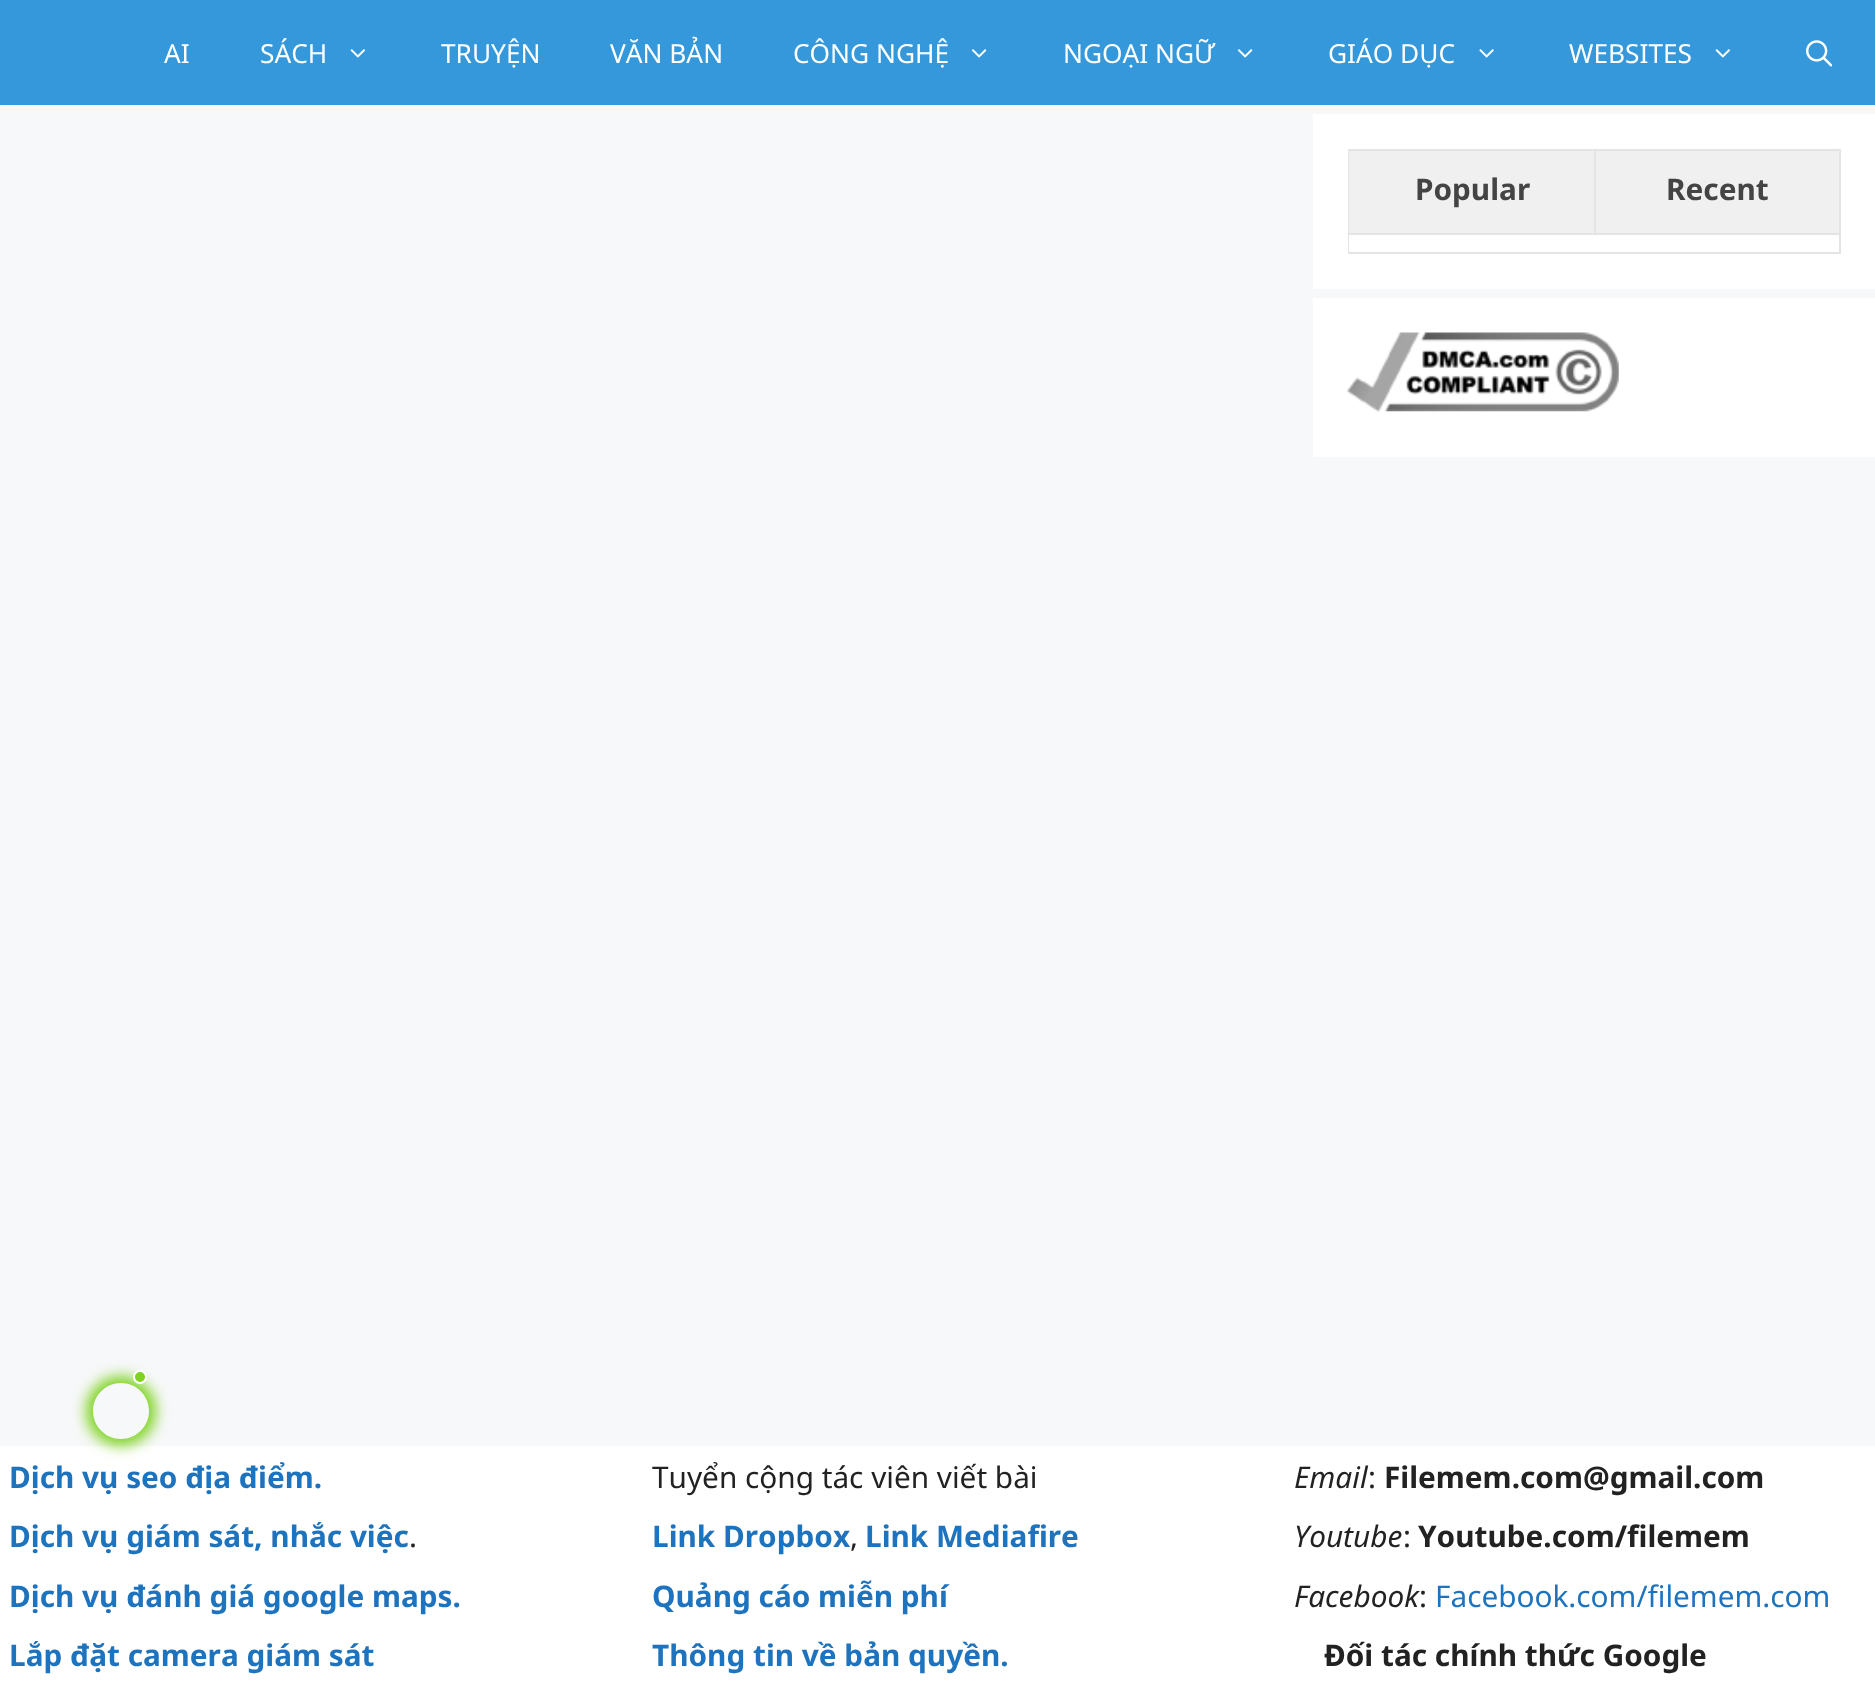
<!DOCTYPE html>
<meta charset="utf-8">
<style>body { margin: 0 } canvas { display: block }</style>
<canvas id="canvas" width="1875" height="1691"></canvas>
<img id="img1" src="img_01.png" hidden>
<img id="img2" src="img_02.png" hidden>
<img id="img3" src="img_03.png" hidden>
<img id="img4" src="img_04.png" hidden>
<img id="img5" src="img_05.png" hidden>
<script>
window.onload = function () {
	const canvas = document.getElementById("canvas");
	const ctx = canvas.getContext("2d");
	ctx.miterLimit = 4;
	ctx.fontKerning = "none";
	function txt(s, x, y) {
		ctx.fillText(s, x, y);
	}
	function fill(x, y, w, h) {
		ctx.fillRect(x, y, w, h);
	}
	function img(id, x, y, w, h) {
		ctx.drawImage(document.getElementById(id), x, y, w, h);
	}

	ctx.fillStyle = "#F7F8F9";
	fill(0, 0, 1875, 1691);
	ctx.fillStyle = "#3498DB";
	fill(0, 0, 1875, 105);
	img("img1", 350, 49, 16, 9);
	img("img2", 971, 49, 16, 9);
	img("img2", 1237, 49, 16, 9);
	img("img3", 1479, 49, 15, 9);
	img("img1", 1715, 49, 16, 9);
	img("img4", 1806, 40, 26, 27);
	ctx.fillStyle = "#FFFFFF";
	fill(1313, 114, 562, 175);
	ctx.strokeStyle = "#E4E4E4";
	ctx.lineWidth = 2;
	ctx.strokeRect(1349, 150, 491, 103);
	ctx.fillStyle = "#F0F0F0";
	fill(1349, 151, 245, 82);
	ctx.fillStyle = "#E4E4E4";
	fill(1349, 233, 490, 2);
	ctx.fillStyle = "#F0F0F0";
	fill(1596, 151, 243, 82);
	ctx.fillStyle = "#E4E4E4";
	fill(1594, 151, 2, 84);
	ctx.fillStyle = "#FFFFFF";
	fill(1349, 235, 1, 17);
	fill(1313, 298, 562, 159);
	img("img5", 1347, 332, 272, 80);
	fill(0, 1446, 1875, 245);
	ctx.save();
	ctx.beginPath();
	ctx.moveTo(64, 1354);
	ctx.lineTo(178, 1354);
	ctx.lineTo(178, 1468);
	ctx.lineTo(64, 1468);
	ctx.closePath();
	ctx.moveTo(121, 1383);
	ctx.bezierCurveTo(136.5, 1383, 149, 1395.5, 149, 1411);
	ctx.bezierCurveTo(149, 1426.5, 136.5, 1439, 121, 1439);
	ctx.bezierCurveTo(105.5, 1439, 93, 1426.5, 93, 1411);
	ctx.bezierCurveTo(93, 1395.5, 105.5, 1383, 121, 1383);
	ctx.closePath();
	ctx.clip("evenodd");
	ctx.fillStyle = "#7ED321";
	ctx.filter = "blur(7px)";
	ctx.beginPath();
	ctx.roundRect(86, 1376, 70, 70, 35);
	ctx.fill();
	ctx.filter = "none";
	ctx.restore();
	ctx.fillStyle = "#7ED321";
	ctx.beginPath();
	ctx.arc(140, 1377, 6, 0, Math.PI * 2);
	ctx.fill();
	ctx.strokeStyle = "#FFFFFF";
	ctx.stroke();
	ctx.font = "26.25px Noto Sans";
	ctx.fillStyle = "#FFFFFF";
	txt("AI", 164, 63);
	txt("SÁCH", 260, 63);
	txt("TRUYỆN", 441, 63);
	txt("VĂN BẢN", 610, 63);
	txt("CÔNG NGHỆ", 793, 63);
	txt("NGOẠI NGỮ", 1063, 63);
	txt("GIÁO DỤC", 1328, 63);
	txt("WEBSITES", 1569, 63);
	ctx.font = "bold 29.75px Noto Sans";
	ctx.fillStyle = "#444444";
	txt("Popular", 1415, 200);
	txt("Recent", 1666, 200);
	ctx.fillStyle = "#1E73BE";
	txt("Dịch vụ seo địa điểm.", 9, 1488);
	txt("Dịch vụ giám sát, nhắc việc", 9, 1547);
	ctx.font = "29.75px Noto Sans";
	ctx.fillStyle = "#222222";
	txt(".", 409, 1547);
	ctx.font = "bold 29.75px Noto Sans";
	ctx.fillStyle = "#1E73BE";
	txt("Dịch vụ đánh giá google maps.", 9, 1607);
	txt("Lắp đặt camera giám sát", 9, 1666);
	ctx.font = "29.75px Noto Sans";
	ctx.fillStyle = "#222222";
	txt("Tuyển cộng tác viên viết bài", 652, 1488);
	ctx.font = "bold 29.75px Noto Sans";
	ctx.fillStyle = "#1E73BE";
	txt("Link Dropbox", 652, 1547);
	ctx.font = "29.75px Noto Sans";
	ctx.fillStyle = "#222222";
	txt(",", 850, 1547);
	ctx.font = "bold 29.75px Noto Sans";
	ctx.fillStyle = "#1E73BE";
	txt("Link Mediafire", 865, 1547);
	txt("Quảng cáo miễn phí", 652, 1607);
	txt("Thông tin về bản quyền.", 652, 1666);
	ctx.font = "italic 29.75px Noto Sans";
	ctx.fillStyle = "#222222";
	txt("Email", 1294, 1488);
	ctx.font = "29.75px Noto Sans";
	txt(":", 1368, 1488);
	ctx.font = "bold 29.75px Noto Sans";
	txt("Filemem.com@gmail.com", 1384, 1488);
	ctx.font = "italic 29.75px Noto Sans";
	txt("Youtube", 1294, 1547);
	ctx.font = "29.75px Noto Sans";
	txt(":", 1403, 1547);
	ctx.font = "bold 29.75px Noto Sans";
	txt("Youtube.com/filemem", 1418, 1547);
	ctx.font = "italic 29.75px Noto Sans";
	txt("Facebook", 1294, 1607);
	ctx.font = "29.75px Noto Sans";
	txt(":", 1419, 1607);
	ctx.fillStyle = "#1E73BE";
	txt("Facebook.com/filemem.com", 1435, 1607);
	ctx.font = "bold 29.75px Noto Sans";
	ctx.fillStyle = "#222222";
	txt("Đối tác chính thức Google", 1324, 1666);
};
</script>
